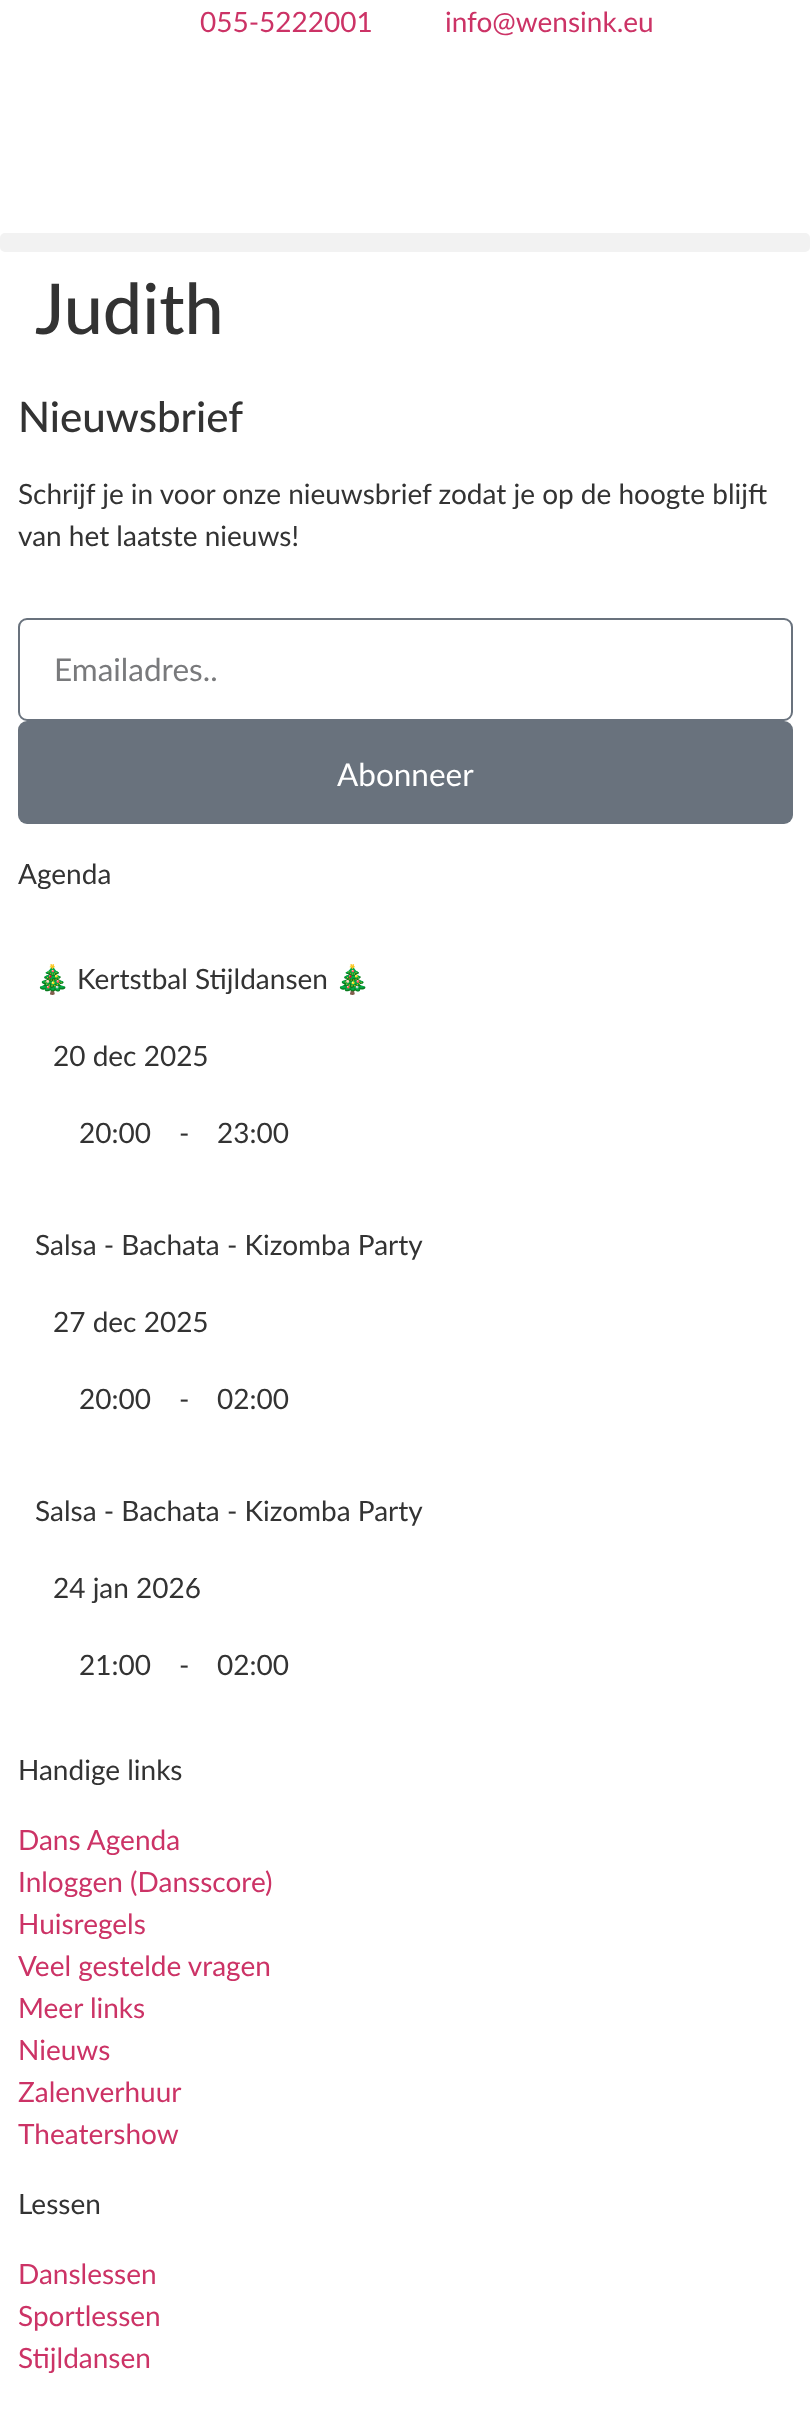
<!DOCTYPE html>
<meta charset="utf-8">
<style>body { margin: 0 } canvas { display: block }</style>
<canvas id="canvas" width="810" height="2419"></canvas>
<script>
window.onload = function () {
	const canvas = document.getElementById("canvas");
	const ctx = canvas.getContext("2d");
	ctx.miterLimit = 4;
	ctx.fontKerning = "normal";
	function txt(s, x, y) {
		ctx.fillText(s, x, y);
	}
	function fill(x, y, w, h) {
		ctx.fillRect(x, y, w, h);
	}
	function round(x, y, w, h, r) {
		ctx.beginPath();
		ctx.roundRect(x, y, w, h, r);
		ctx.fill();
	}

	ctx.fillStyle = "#FFFFFF";
	fill(0, 0, 810, 2419);
	ctx.fillStyle = "#F2F2F2";
	round(0, 233, 810, 19, 5);
	ctx.beginPath();
	ctx.roundRect(19, 619, 773, 101, 8);
	ctx.strokeStyle = "#69727D";
	ctx.lineWidth = 2;
	ctx.stroke();
	ctx.fillStyle = "#69727D";
	round(18, 721, 775, 103, 9);
	ctx.font = "28px Lato";
	ctx.fillStyle = "#CC3366";
	txt("055-5222001", 200, 32);
	txt("info@wensink.eu", 445, 32);
	ctx.font = "500 70px Lato";
	ctx.fillStyle = "#333333";
	txt("Judith", 35, 334);
	ctx.font = "500 42px Lato";
	txt("Nieuwsbrief", 18, 432);
	ctx.font = "28px Lato";
	txt("Schrijf je in voor onze nieuwsbrief zodat je op de hoogte blijft", 18, 504);
	txt("van het laatste nieuws!", 18, 546);
	ctx.font = "31.5px Lato";
	ctx.fillStyle = "#797A7C";
	txt("Emailadres..", 54, 681);
	ctx.fillStyle = "#FFFFFF";
	txt("Abonneer", 337, 786);
	ctx.font = "28px Lato";
	ctx.fillStyle = "#333333";
	txt("Agenda", 18, 884);
	ctx.font = "28px Noto Color Emoji";
	txt("🎄", 35, 989);
	ctx.font = "28px Lato";
	txt("Kertstbal Stijldansen", 77, 989);
	ctx.font = "28px Noto Color Emoji";
	txt("🎄", 335, 989);
	ctx.font = "28px Lato";
	txt("20 dec 2025", 53, 1066);
	txt("20:00", 79, 1143);
	txt("-", 179, 1143);
	txt("23:00", 217, 1143);
	txt("Salsa - Bachata - Kizomba Party", 35, 1255);
	txt("27 dec 2025", 53, 1332);
	txt("20:00", 79, 1409);
	txt("-", 179, 1409);
	txt("02:00", 217, 1409);
	txt("Salsa - Bachata - Kizomba Party", 35, 1521);
	txt("24 jan 2026", 53, 1598);
	txt("21:00", 79, 1675);
	txt("-", 179, 1675);
	txt("02:00", 217, 1675);
	txt("Handige links", 18, 1780);
	ctx.fillStyle = "#CC3366";
	txt("Dans Agenda", 18, 1850);
	txt("Inloggen (Dansscore)", 18, 1892);
	txt("Huisregels", 18, 1934);
	txt("Veel gestelde vragen", 18, 1976);
	txt("Meer links", 18, 2018);
	txt("Nieuws", 18, 2060);
	txt("Zalenverhuur", 18, 2102);
	txt("Theatershow", 18, 2144);
	ctx.fillStyle = "#333333";
	txt("Lessen", 18, 2214);
	ctx.fillStyle = "#CC3366";
	txt("Danslessen", 18, 2284);
	txt("Sportlessen", 18, 2326);
	txt("Stijldansen", 18, 2368);
};
</script>
